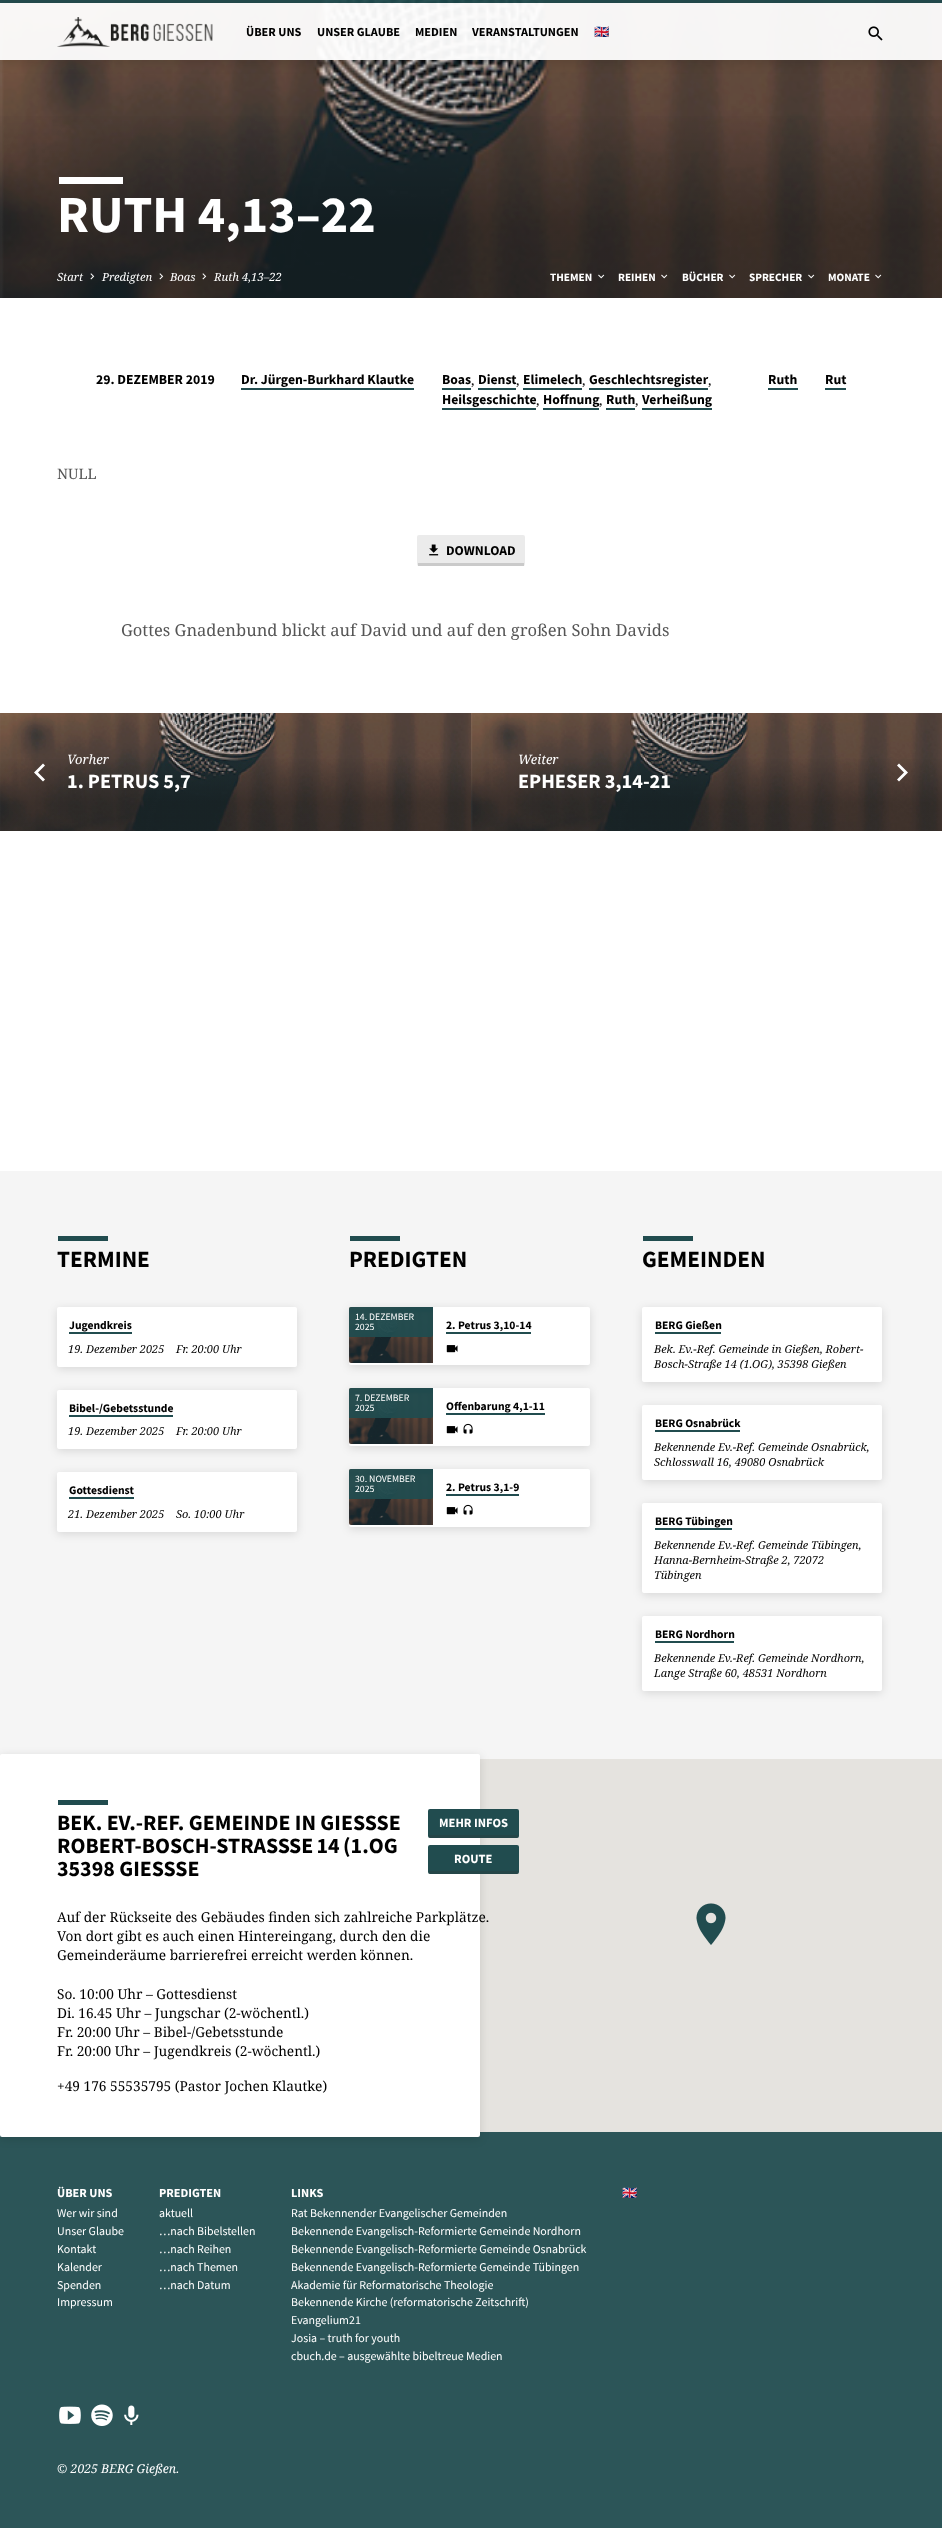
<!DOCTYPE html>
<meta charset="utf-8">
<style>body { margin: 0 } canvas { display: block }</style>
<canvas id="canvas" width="942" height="2528"></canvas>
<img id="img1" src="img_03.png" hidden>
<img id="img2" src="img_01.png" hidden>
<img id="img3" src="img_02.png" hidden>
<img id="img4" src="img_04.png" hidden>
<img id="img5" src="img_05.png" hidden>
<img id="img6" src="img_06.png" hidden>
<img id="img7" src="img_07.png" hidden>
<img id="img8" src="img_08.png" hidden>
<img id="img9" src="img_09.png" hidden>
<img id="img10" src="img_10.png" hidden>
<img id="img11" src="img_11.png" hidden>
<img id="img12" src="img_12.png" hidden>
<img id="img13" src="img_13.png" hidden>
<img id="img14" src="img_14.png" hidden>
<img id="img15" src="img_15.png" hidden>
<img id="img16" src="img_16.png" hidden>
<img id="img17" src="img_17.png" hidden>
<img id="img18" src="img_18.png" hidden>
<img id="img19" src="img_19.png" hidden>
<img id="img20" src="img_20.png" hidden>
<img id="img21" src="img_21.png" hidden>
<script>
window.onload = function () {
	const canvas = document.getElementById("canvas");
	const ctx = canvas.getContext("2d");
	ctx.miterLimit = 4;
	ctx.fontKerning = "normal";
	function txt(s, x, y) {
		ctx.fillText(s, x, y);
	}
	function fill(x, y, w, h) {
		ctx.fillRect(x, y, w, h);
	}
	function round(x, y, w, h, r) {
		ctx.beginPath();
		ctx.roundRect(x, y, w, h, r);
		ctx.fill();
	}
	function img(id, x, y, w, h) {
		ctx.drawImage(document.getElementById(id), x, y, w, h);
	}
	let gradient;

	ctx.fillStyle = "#FFFFFF";
	fill(0, 0, 942, 2528);
	img("img1", 0, 0, 942, 298);
	ctx.fillStyle = "rgba(33, 76, 79, 0.95)";
	fill(0, 0, 942, 3);
	ctx.fillStyle = "rgba(255, 255, 255, 0.95)";
	fill(0, 3, 942, 57);
	ctx.save();
	ctx.beginPath();
	ctx.moveTo(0, 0);
	ctx.lineTo(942, 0);
	ctx.lineTo(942, 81);
	ctx.lineTo(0, 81);
	ctx.closePath();
	ctx.moveTo(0, 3);
	ctx.lineTo(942, 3);
	ctx.lineTo(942, 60);
	ctx.lineTo(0, 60);
	ctx.closePath();
	ctx.clip("evenodd");
	ctx.fillStyle = "rgba(0, 0, 0, 0.14)";
	ctx.filter = "blur(6px)";
	ctx.beginPath();
	ctx.rect(0, 5, 942, 57);
	ctx.fill();
	ctx.filter = "none";
	ctx.restore();
	img("img2", 57, 17, 156, 30);
	img("img3", 868, 26, 15, 15);
	gradient = ctx.createLinearGradient(471, 0, 471, 298);
	gradient.addColorStop(0, "rgba(0, 0, 0, 0)");
	gradient.addColorStop(0.36, "rgba(0, 0, 0, 0)");
	gradient.addColorStop(0.76, "rgba(0, 0, 0, 0.28)");
	gradient.addColorStop(1, "rgba(0, 0, 0, 0.28)");
	ctx.fillStyle = gradient;
	fill(0, 116, 942, 182);
	ctx.fillStyle = "#FFFFFF";
	fill(59, 177, 64, 7);
	img("img4", 90, 273, 5, 7);
	img("img5", 159, 273, 5, 7);
	img("img6", 202, 273, 5, 7);
	img("img7", 598, 274, 7, 5);
	img("img8", 661, 274, 7, 5);
	img("img9", 729, 274, 7, 5);
	img("img10", 808, 274, 7, 5);
	img("img11", 875, 274, 7, 5);
	ctx.fillStyle = "#214C4F";
	fill(241, 388, 173, 2);
	fill(442, 388, 29, 2);
	fill(478, 388, 38, 2);
	fill(523, 388, 59, 2);
	fill(589, 388, 119, 2);
	fill(442, 408, 94, 2);
	fill(543, 408, 56, 2);
	fill(606, 408, 29, 2);
	fill(642, 408, 70, 2);
	fill(768, 388, 30, 2);
	fill(825, 388, 21, 2);
	ctx.fillStyle = "#EBEBEB";
	round(417, 535, 108, 31, 2);
	ctx.fillStyle = "#CACACA";
	fill(418, 563, 106, 3);
	img("img12", 429, 544, 10, 12);
	img("img13", 0, 713, 471, 118);
	gradient = ctx.createLinearGradient(238, 713, 238, 831);
	gradient.addColorStop(0, "rgba(6, 6, 6, 0)");
	gradient.addColorStop(0.36, "rgba(6, 6, 6, 0)");
	gradient.addColorStop(0.76, "rgba(6, 6, 6, 0.28)");
	gradient.addColorStop(1, "rgba(6, 6, 6, 0.28)");
	ctx.fillStyle = gradient;
	fill(0, 759, 471, 72);
	ctx.fillStyle = "#FFFFFF";
	ctx.beginPath();
	ctx.moveTo(45, 779.5);
	ctx.lineTo(38, 772.5);
	ctx.lineTo(45, 765.5);
	ctx.lineTo(43, 763.5);
	ctx.lineTo(34, 772.5);
	ctx.lineTo(43, 781.5);
	ctx.closePath();
	ctx.fill();
	img("img14", 471, 713, 471, 118);
	gradient = ctx.createLinearGradient(710, 713, 710, 831);
	gradient.addColorStop(0, "rgba(6, 6, 6, 0)");
	gradient.addColorStop(0.36, "rgba(6, 6, 6, 0)");
	gradient.addColorStop(0.76, "rgba(6, 6, 6, 0.28)");
	gradient.addColorStop(1, "rgba(6, 6, 6, 0.28)");
	ctx.fillStyle = gradient;
	fill(471, 759, 471, 72);
	ctx.fillStyle = "#FFFFFF";
	ctx.beginPath();
	ctx.moveTo(897, 779.5);
	ctx.lineTo(904, 772.5);
	ctx.lineTo(897, 765.5);
	ctx.lineTo(899, 763.5);
	ctx.lineTo(908, 772.5);
	ctx.lineTo(899, 781.5);
	ctx.closePath();
	ctx.fill();
	ctx.fillStyle = "#F5F5F5";
	fill(0, 1171, 942, 588);
	ctx.fillStyle = "#214C4F";
	fill(58, 1236, 50, 5);
	ctx.fillStyle = "rgba(0, 0, 0, 0.12)";
	ctx.filter = "blur(5px)";
	ctx.beginPath();
	ctx.roundRect(57, 1309, 240, 60, 2);
	ctx.fill();
	ctx.filter = "none";
	ctx.fillStyle = "#FFFFFF";
	round(57, 1307, 240, 60, 2);
	ctx.fillStyle = "#214C4F";
	fill(69, 1332, 63, 2);
	ctx.fillStyle = "rgba(0, 0, 0, 0.12)";
	ctx.filter = "blur(5px)";
	ctx.beginPath();
	ctx.roundRect(57, 1392, 240, 59, 2);
	ctx.fill();
	ctx.filter = "none";
	ctx.fillStyle = "#FFFFFF";
	round(57, 1390, 240, 59, 2);
	ctx.fillStyle = "#214C4F";
	fill(69, 1415, 104, 2);
	ctx.fillStyle = "rgba(0, 0, 0, 0.12)";
	ctx.filter = "blur(5px)";
	ctx.beginPath();
	ctx.roundRect(57, 1474, 240, 60, 2);
	ctx.fill();
	ctx.filter = "none";
	ctx.fillStyle = "#FFFFFF";
	round(57, 1472, 240, 60, 2);
	ctx.fillStyle = "#214C4F";
	fill(69, 1497, 65, 2);
	fill(350, 1236, 50, 5);
	ctx.fillStyle = "rgba(0, 0, 0, 0.12)";
	ctx.filter = "blur(5px)";
	ctx.beginPath();
	ctx.roundRect(349, 1309, 241, 58, 2);
	ctx.fill();
	ctx.filter = "none";
	ctx.fillStyle = "#FFFFFF";
	round(349, 1307, 241, 58, 2);
	img("img15", 349, 1307, 84, 56);
	ctx.fillStyle = "rgba(33, 76, 79, 0.95)";
	ctx.beginPath();
	ctx.roundRect(349, 1307, 84, 30, [2, 0, 2, 0]);
	ctx.fill();
	ctx.fillStyle = "#214C4F";
	fill(446, 1332, 85, 2);
	img("img16", 446, 1345, 12, 8);
	ctx.fillStyle = "rgba(0, 0, 0, 0.12)";
	ctx.filter = "blur(5px)";
	ctx.beginPath();
	ctx.roundRect(349, 1390, 241, 58, 2);
	ctx.fill();
	ctx.filter = "none";
	ctx.fillStyle = "#FFFFFF";
	round(349, 1388, 241, 58, 2);
	img("img15", 349, 1388, 84, 56);
	ctx.fillStyle = "rgba(33, 76, 79, 0.95)";
	ctx.beginPath();
	ctx.roundRect(349, 1388, 84, 30, [2, 0, 2, 0]);
	ctx.fill();
	ctx.fillStyle = "#214C4F";
	fill(446, 1413, 99, 2);
	img("img16", 446, 1426, 12, 8);
	img("img17", 463, 1423, 10, 11);
	ctx.fillStyle = "rgba(0, 0, 0, 0.12)";
	ctx.filter = "blur(5px)";
	ctx.beginPath();
	ctx.roundRect(349, 1471, 241, 58, 2);
	ctx.fill();
	ctx.filter = "none";
	ctx.fillStyle = "#FFFFFF";
	round(349, 1469, 241, 58, 2);
	img("img15", 349, 1469, 84, 56);
	ctx.fillStyle = "rgba(33, 76, 79, 0.95)";
	ctx.beginPath();
	ctx.roundRect(349, 1469, 84, 30, [2, 0, 2, 0]);
	ctx.fill();
	ctx.fillStyle = "#214C4F";
	fill(446, 1494, 73, 2);
	img("img16", 446, 1507, 12, 8);
	img("img17", 463, 1504, 10, 11);
	fill(643, 1236, 50, 5);
	ctx.fillStyle = "rgba(0, 0, 0, 0.12)";
	ctx.filter = "blur(5px)";
	ctx.beginPath();
	ctx.roundRect(642, 1309, 240, 75, 2);
	ctx.fill();
	ctx.filter = "none";
	ctx.fillStyle = "#FFFFFF";
	round(642, 1307, 240, 75, 2);
	ctx.fillStyle = "#214C4F";
	fill(655, 1332, 66, 2);
	ctx.fillStyle = "rgba(0, 0, 0, 0.12)";
	ctx.filter = "blur(5px)";
	ctx.beginPath();
	ctx.roundRect(642, 1407, 240, 75, 2);
	ctx.fill();
	ctx.filter = "none";
	ctx.fillStyle = "#FFFFFF";
	round(642, 1405, 240, 75, 2);
	ctx.fillStyle = "#214C4F";
	fill(655, 1430, 85, 2);
	ctx.fillStyle = "rgba(0, 0, 0, 0.12)";
	ctx.filter = "blur(5px)";
	ctx.beginPath();
	ctx.roundRect(642, 1505, 240, 90, 2);
	ctx.fill();
	ctx.filter = "none";
	ctx.fillStyle = "#FFFFFF";
	round(642, 1503, 240, 90, 2);
	ctx.fillStyle = "#214C4F";
	fill(655, 1528, 77, 2);
	ctx.fillStyle = "rgba(0, 0, 0, 0.12)";
	ctx.filter = "blur(5px)";
	ctx.beginPath();
	ctx.roundRect(642, 1618, 240, 75, 2);
	ctx.fill();
	ctx.filter = "none";
	ctx.fillStyle = "#FFFFFF";
	round(642, 1616, 240, 75, 2);
	ctx.fillStyle = "#214C4F";
	fill(655, 1641, 79, 2);
	ctx.fillStyle = "#E5E3DF";
	fill(480, 1759, 462, 373);
	ctx.fillStyle = "#2C5558";
	fill(0, 2132, 942, 396);
	ctx.fillStyle = "rgba(0, 0, 0, 0.12)";
	ctx.filter = "blur(5px)";
	ctx.beginPath();
	ctx.roundRect(0, 1756, 480, 383, 2);
	ctx.fill();
	ctx.filter = "none";
	ctx.fillStyle = "#FFFFFF";
	round(0, 1754, 480, 383, 2);
	img("img18", 696, 1903, 30, 42);
	ctx.fillStyle = "#214C4F";
	fill(58, 1800, 50, 5);
	round(428, 1809, 91, 29, 2);
	ctx.fillStyle = "rgba(50, 50, 50, 0.25)";
	fill(429, 1835, 89, 3);
	ctx.fillStyle = "#214C4F";
	round(428, 1845, 91, 29, 2);
	ctx.fillStyle = "rgba(50, 50, 50, 0.25)";
	fill(429, 1871, 89, 3);
	img("img19", 59, 2406, 22, 18);
	img("img20", 91, 2404, 22, 22);
	img("img21", 124, 2405, 15, 20);
	ctx.font = "bold 12.25px Source Sans Pro";
	ctx.fillStyle = "#000000";
	txt("ÜBER UNS", 246, 36);
	txt("UNSER GLAUBE", 317, 36);
	txt("MEDIEN", 415, 36);
	txt("VERANSTALTUNGEN", 472, 36);
	ctx.font = "bold 12.25px Noto Color Emoji";
	txt("🇬🇧", 594, 36);
	ctx.font = "bold 52px Source Sans Pro";
	ctx.fillStyle = "#FFFFFF";
	txt("RUTH 4,13–22", 57, 232);
	ctx.font = "italic 11.25px Noto Serif";
	txt("Start", 57, 281);
	txt("Predigten", 102, 281);
	txt("Boas", 170, 281);
	txt("Ruth 4,13–22", 214, 281);
	ctx.font = "bold 11.25px Source Sans Pro";
	txt("THEMEN", 550, 281);
	txt("REIHEN", 618, 281);
	txt("BÜCHER", 682, 281);
	txt("SPRECHER", 749, 281);
	txt("MONATE", 828, 281);
	ctx.font = "bold 13.7px Source Sans Pro";
	ctx.fillStyle = "#000000";
	txt("29. DEZEMBER 2019", 96, 384);
	txt("Dr. Jürgen-Burkhard Klautke", 241, 384);
	txt("Boas", 442, 384);
	txt("Dienst", 478, 384);
	txt("Elimelech", 523, 384);
	txt("Geschlechtsregister", 589, 384);
	ctx.font = "13.7px Noto Serif";
	txt(",", 471, 385);
	txt(",", 516, 385);
	txt(",", 582, 385);
	txt(",", 708, 385);
	ctx.font = "bold 13.7px Source Sans Pro";
	txt("Heilsgeschichte", 442, 404);
	ctx.font = "13.7px Noto Serif";
	txt(",", 536, 405);
	txt(",", 599, 405);
	ctx.font = "bold 13.7px Source Sans Pro";
	txt("Hoffnung", 543, 404);
	txt("Ruth", 606, 404);
	ctx.font = "13.7px Noto Serif";
	txt(",", 635, 405);
	ctx.font = "bold 13.7px Source Sans Pro";
	txt("Verheißung", 642, 404);
	txt("Ruth", 768, 384);
	txt("Rut", 825, 384);
	ctx.font = "14.5px Noto Serif";
	ctx.fillStyle = "#555555";
	txt("NULL", 57, 479);
	ctx.font = "bold 13.5px Source Sans Pro";
	ctx.fillStyle = "#000000";
	txt("DOWNLOAD", 446, 555);
	ctx.font = "16.55px Noto Serif";
	ctx.fillStyle = "#555555";
	txt("Gottes Gnadenbund blickt auf David und auf den großen Sohn Davids", 121, 636);
	ctx.font = "italic 13px Noto Serif";
	ctx.fillStyle = "#FFFFFF";
	txt("Vorher", 67, 764);
	ctx.font = "bold 20.25px Source Sans Pro";
	txt("1. PETRUS 5,7", 67, 788);
	ctx.font = "italic 13px Noto Serif";
	txt("Weiter", 518, 764);
	ctx.font = "bold 20.25px Source Sans Pro";
	txt("EPHESER 3,14-21", 518, 788);
	ctx.font = "bold 23.25px Source Sans Pro";
	ctx.fillStyle = "#000000";
	txt("TERMINE", 57, 1267);
	ctx.font = "bold 11.6px Source Sans Pro";
	txt("Jugendkreis", 69, 1329);
	ctx.font = "italic 11px Noto Serif";
	txt("19. Dezember 2025", 68, 1353);
	txt("Fr. 20:00 Uhr", 176, 1353);
	ctx.font = "bold 11.6px Source Sans Pro";
	txt("Bibel-/Gebetsstunde", 69, 1412);
	ctx.font = "italic 11px Noto Serif";
	txt("19. Dezember 2025", 68, 1435);
	txt("Fr. 20:00 Uhr", 176, 1435);
	ctx.font = "bold 11.6px Source Sans Pro";
	txt("Gottesdienst", 69, 1494);
	ctx.font = "italic 11px Noto Serif";
	txt("21. Dezember 2025", 68, 1518);
	txt("So. 10:00 Uhr", 176, 1518);
	ctx.font = "bold 23.25px Source Sans Pro";
	txt("PREDIGTEN", 349, 1267);
	ctx.font = "9.75px Source Sans Pro";
	ctx.fillStyle = "#FFFFFF";
	txt("14. DEZEMBER", 355, 1320);
	txt("2025", 355, 1330);
	ctx.font = "bold 11.6px Source Sans Pro";
	ctx.fillStyle = "#000000";
	txt("2. Petrus 3,10-14", 446, 1329);
	ctx.font = "9.75px Source Sans Pro";
	ctx.fillStyle = "#FFFFFF";
	txt("7. DEZEMBER", 355, 1401);
	txt("2025", 355, 1411);
	ctx.font = "bold 11.6px Source Sans Pro";
	ctx.fillStyle = "#000000";
	txt("Offenbarung 4,1-11", 446, 1410);
	ctx.font = "9.75px Source Sans Pro";
	ctx.fillStyle = "#FFFFFF";
	txt("30. NOVEMBER", 355, 1482);
	txt("2025", 355, 1492);
	ctx.font = "bold 11.6px Source Sans Pro";
	ctx.fillStyle = "#000000";
	txt("2. Petrus 3,1-9", 446, 1491);
	ctx.font = "bold 23.25px Source Sans Pro";
	txt("GEMEINDEN", 642, 1267);
	ctx.font = "bold 11.6px Source Sans Pro";
	txt("BERG Gießen", 655, 1329);
	ctx.font = "italic 11px Noto Serif";
	txt("Bek. Ev.-Ref. Gemeinde in Gießen, Robert-", 654, 1353);
	txt("Bosch-Straße 14 (1.OG), 35398 Gießen", 654, 1368);
	ctx.font = "bold 11.6px Source Sans Pro";
	txt("BERG Osnabrück", 655, 1427);
	ctx.font = "italic 11px Noto Serif";
	txt("Bekennende Ev.-Ref. Gemeinde Osnabrück,", 654, 1451);
	txt("Schlosswall 16, 49080 Osnabrück", 654, 1466);
	ctx.font = "bold 11.6px Source Sans Pro";
	txt("BERG Tübingen", 655, 1525);
	ctx.font = "italic 11px Noto Serif";
	txt("Bekennende Ev.-Ref. Gemeinde Tübingen,", 654, 1549);
	txt("Hanna-Bernheim-Straße 2, 72072", 654, 1564);
	txt("Tübingen", 654, 1579);
	ctx.font = "bold 11.6px Source Sans Pro";
	txt("BERG Nordhorn", 655, 1638);
	ctx.font = "italic 11px Noto Serif";
	txt("Bekennende Ev.-Ref. Gemeinde Nordhorn,", 654, 1662);
	txt("Lange Straße 60, 48531 Nordhorn", 654, 1677);
	ctx.font = "bold 21.9px Source Sans Pro";
	txt("BEK. EV.-REF. GEMEINDE IN GIESSSE", 57, 1830);
	txt("ROBERT-BOSCH-STRASS", 57, 1853);
	ctx.wordSpacing = "-1px";
	txt("SE 14 (1.OG", 289, 1853);
	ctx.wordSpacing = "0px";
	txt("35398 GIESSSE", 57, 1876);
	ctx.font = "bold 12.5px Source Sans Pro";
	ctx.fillStyle = "#FFFFFF";
	txt("MEHR INFOS", 439, 1827);
	txt("ROUTE", 454, 1863);
	ctx.font = "13.7px Noto Serif";
	ctx.fillStyle = "#000000";
	txt("Auf der Rückseite des Gebäudes finden sich zahlreiche Parkplätze.", 57, 1922);
	txt("Von dort gibt es auch einen Hintereingang, durch den die", 57, 1941);
	txt("Gemeinderäume barrierefrei erreicht werden können.", 57, 1960);
	txt("So. 10:00 Uhr – Gottesdienst", 57, 1999);
	txt("Di. 16.45 Uhr – Jungschar (2-wöchentl.)", 57, 2018);
	txt("Fr. 20:00 Uhr – Bibel-/Gebetsstunde", 57, 2037);
	txt("Fr. 20:00 Uhr – Jugendkreis (2-wöchentl.)", 57, 2056);
	txt("+49 176 55535795 (Pastor Jochen Klautke)", 57, 2091);
	ctx.font = "bold 12.25px Source Sans Pro";
	ctx.fillStyle = "#FFFFFF";
	txt("ÜBER UNS", 57, 2197);
	ctx.font = "11.9px Source Sans Pro";
	txt("Wer wir sind", 57, 2217);
	txt("Unser Glaube", 57, 2235);
	txt("Kontakt", 57, 2253);
	txt("Kalender", 57, 2271);
	txt("Spenden", 57, 2289);
	txt("Impressum", 57, 2306);
	ctx.font = "bold 12.25px Source Sans Pro";
	txt("PREDIGTEN", 159, 2197);
	ctx.font = "11.9px Source Sans Pro";
	txt("aktuell", 159, 2217);
	txt("…nach Bibelstellen", 159, 2235);
	txt("…nach Reihen", 159, 2253);
	txt("…nach Themen", 159, 2271);
	txt("…nach Datum", 159, 2289);
	ctx.font = "bold 12.25px Source Sans Pro";
	txt("LINKS", 291, 2197);
	ctx.font = "11.9px Source Sans Pro";
	txt("Rat Bekennender Evangelischer Gemeinden", 291, 2217);
	txt("Bekennende Evangelisch-Reformierte Gemeinde Nordhorn", 291, 2235);
	txt("Bekennende Evangelisch-Reformierte Gemeinde Osnabrück", 291, 2253);
	txt("Bekennende Evangelisch-Reformierte Gemeinde Tübingen", 291, 2271);
	txt("Akademie für Reformatorische Theologie", 291, 2289);
	txt("Bekennende Kirche (reformatorische Zeitschrift)", 291, 2306);
	txt("Evangelium21", 291, 2324);
	txt("Josia – truth for youth", 291, 2342);
	txt("cbuch.de – ausgewählte bibeltreue Medien", 291, 2360);
	ctx.font = "bold 12.25px Noto Color Emoji";
	txt("🇬🇧", 622, 2197);
	ctx.font = "italic 12.25px Noto Serif";
	txt("© 2025 BERG Gießen.", 57, 2473);
};
</script>
